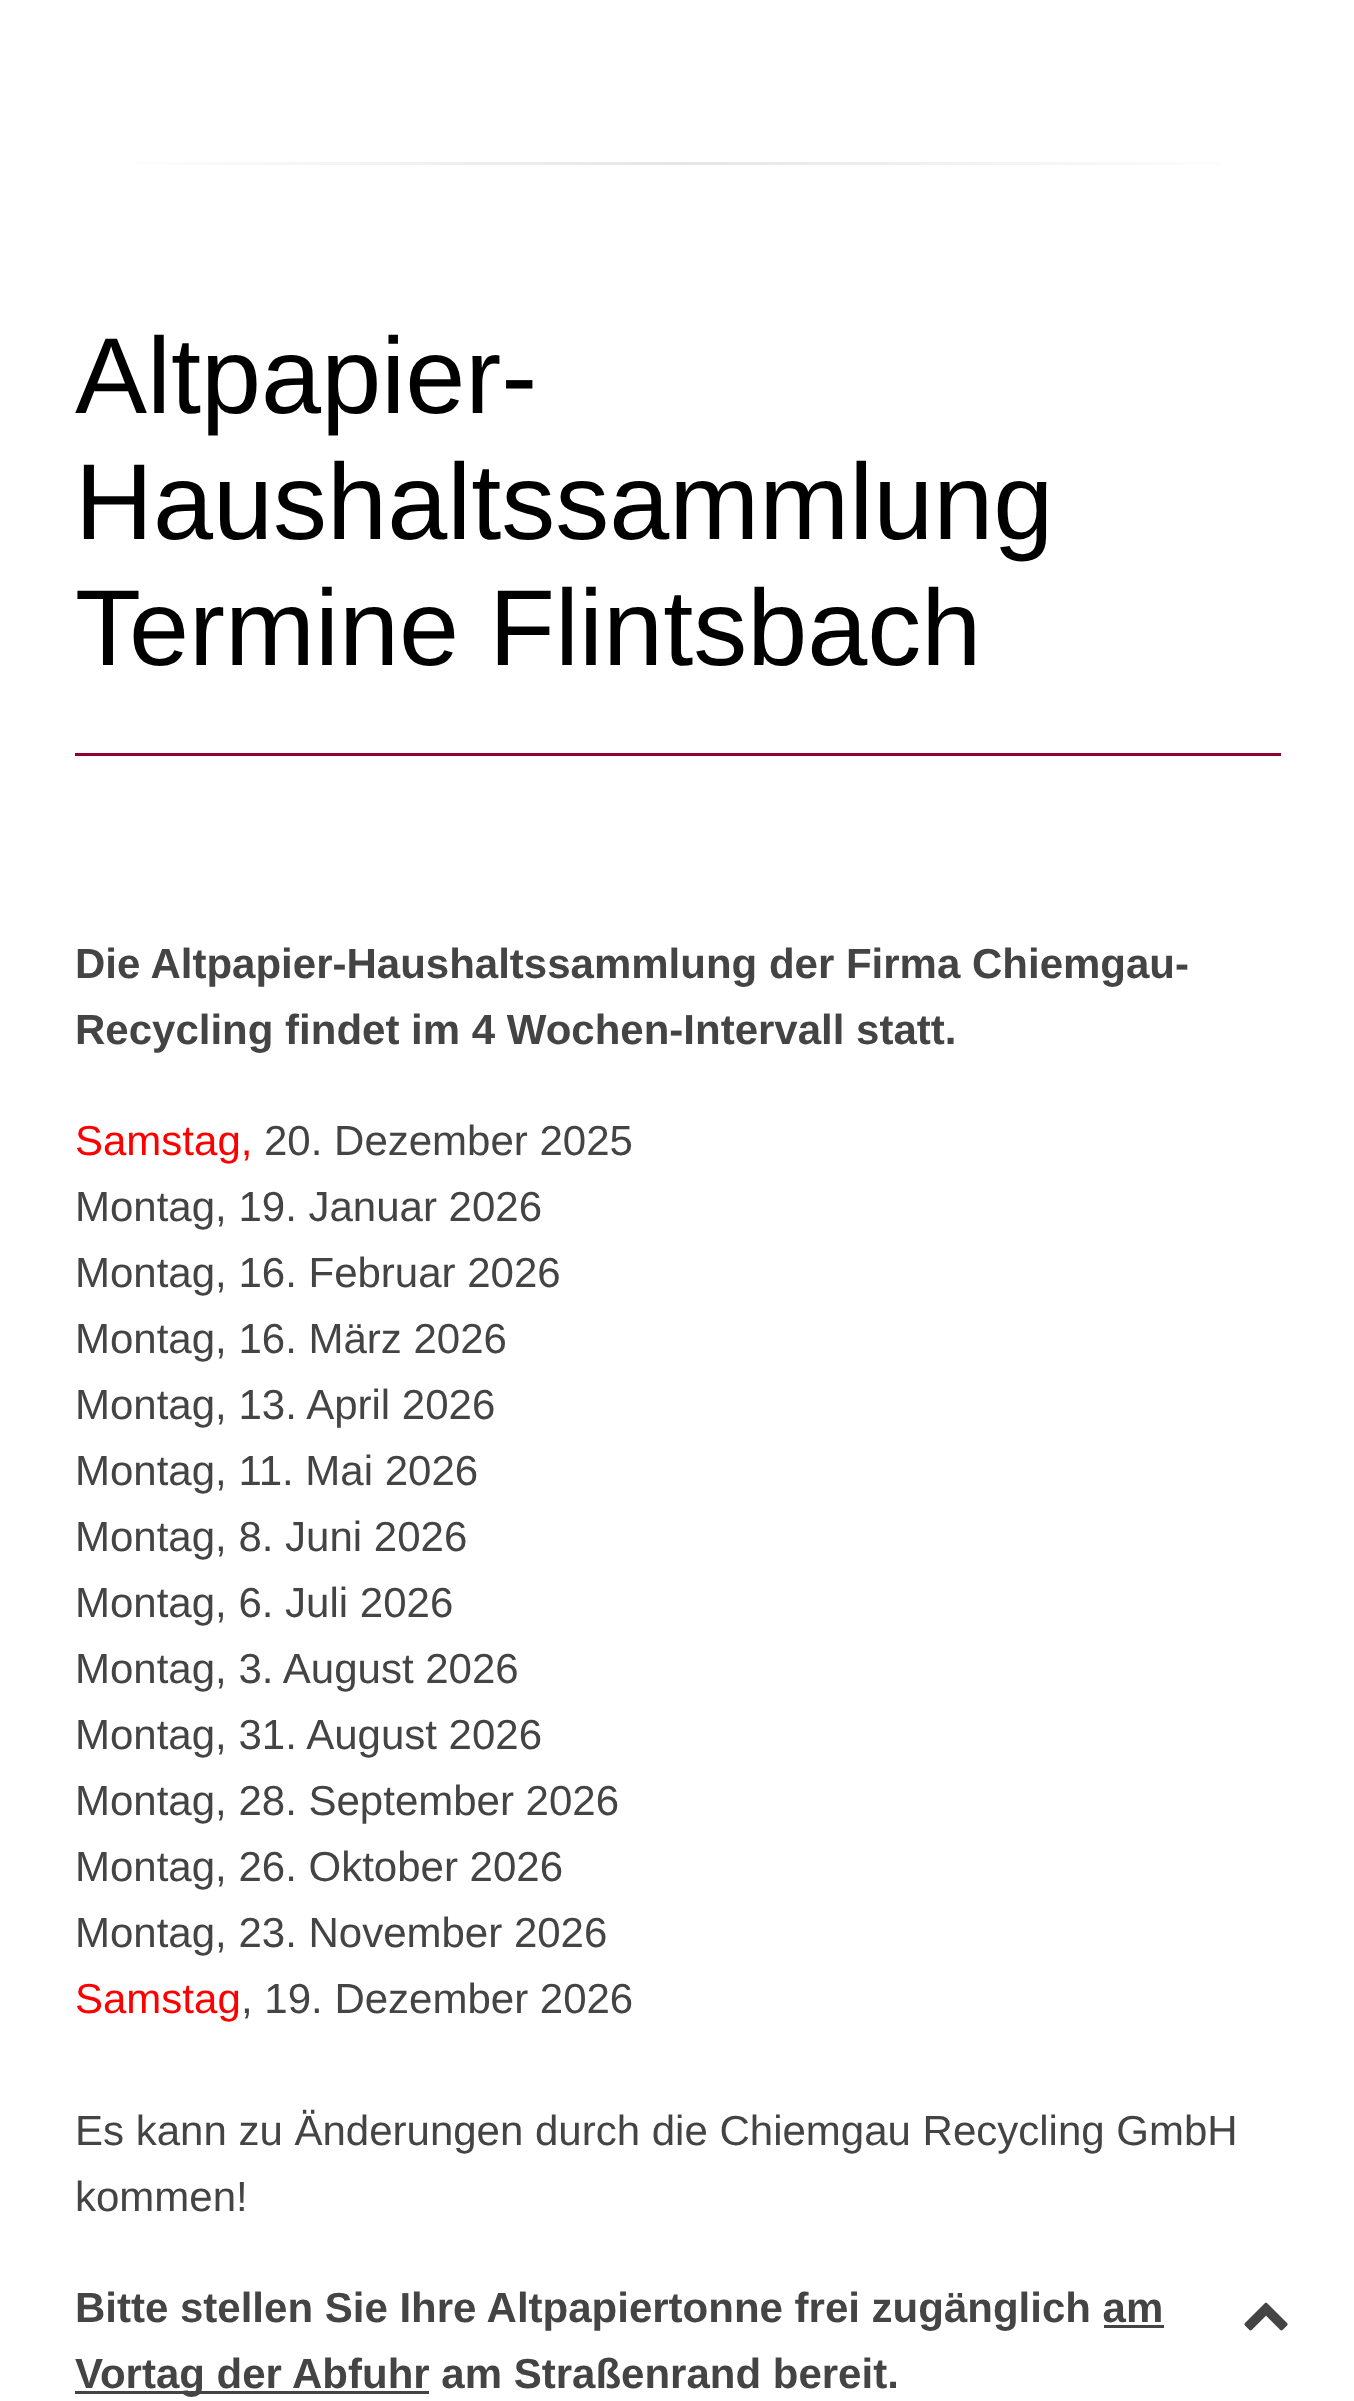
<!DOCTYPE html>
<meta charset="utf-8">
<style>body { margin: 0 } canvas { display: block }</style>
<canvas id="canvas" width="1354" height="2401"></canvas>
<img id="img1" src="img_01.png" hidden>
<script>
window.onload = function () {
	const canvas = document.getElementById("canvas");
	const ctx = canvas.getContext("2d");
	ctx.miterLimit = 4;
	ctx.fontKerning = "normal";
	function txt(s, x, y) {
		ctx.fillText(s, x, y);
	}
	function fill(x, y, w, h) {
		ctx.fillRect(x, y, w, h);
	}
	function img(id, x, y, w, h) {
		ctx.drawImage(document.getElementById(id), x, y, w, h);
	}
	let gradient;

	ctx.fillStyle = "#FFFFFF";
	fill(0, 0, 1354, 2401);
	gradient = ctx.createLinearGradient(75, 164, 1281, 163);
	gradient.addColorStop(0, "#FFFFFF");
	gradient.addColorStop(0.5, "#E6E6E6");
	gradient.addColorStop(1, "#FFFFFF");
	ctx.fillStyle = gradient;
	fill(135, 162, 1086, 3);
	ctx.fillStyle = "#900033";
	fill(75, 753, 1206, 3);
	ctx.fillStyle = "#444444";
	fill(1104, 2325, 60, 3);
	fill(75, 2391, 354, 3);
	img("img1", 1244, 2302, 44, 29);
	ctx.font = "108px Liberation Sans";
	ctx.fillStyle = "#000000";
	txt("Altpapier-", 75, 413);
	txt("Haushaltssammlung", 75, 539);
	txt("Termine Flintsbach", 75, 665);
	ctx.font = "bold 42px Liberation Sans";
	ctx.fillStyle = "#444444";
	txt("Die Altpapier-Haushaltssammlung der Firma Chiemgau-", 75, 978);
	txt("Recycling findet im 4 Wochen-Intervall statt.", 75, 1044);
	ctx.font = "42px Liberation Sans";
	ctx.fillStyle = "#FF0000";
	txt("Samstag,", 75, 1155);
	ctx.fillStyle = "#444444";
	txt("20. Dezember 2025", 264, 1155);
	txt("Montag, 19. Januar 2026", 75, 1221);
	txt("Montag, 16. Februar 2026", 75, 1287);
	txt("Montag, 16. März 2026", 75, 1353);
	txt("Montag, 13. April 2026", 75, 1419);
	txt("Montag, 11. Mai 2026", 75, 1485);
	txt("Montag, 8. Juni 2026", 75, 1551);
	txt("Montag, 6. Juli 2026", 75, 1617);
	txt("Montag, 3. August 2026", 75, 1683);
	txt("Montag, 31. August 2026", 75, 1749);
	txt("Montag, 28. September 2026", 75, 1815);
	txt("Montag, 26. Oktober 2026", 75, 1881);
	txt("Montag, 23. November 2026", 75, 1947);
	ctx.fillStyle = "#FF0000";
	txt("Samstag", 75, 2013);
	ctx.fillStyle = "#444444";
	txt(", 19. Dezember 2026", 241, 2013);
	txt("Es kann zu Änderungen durch die Chiemgau Recycling GmbH", 75, 2145);
	txt("kommen!", 75, 2211);
	ctx.font = "bold 42px Liberation Sans";
	txt("Bitte stellen Sie Ihre Altpapiertonne frei zugänglich am", 75, 2322);
	txt("Vortag der Abfuhr am Straßenrand bereit.", 75, 2388);
};
</script>
